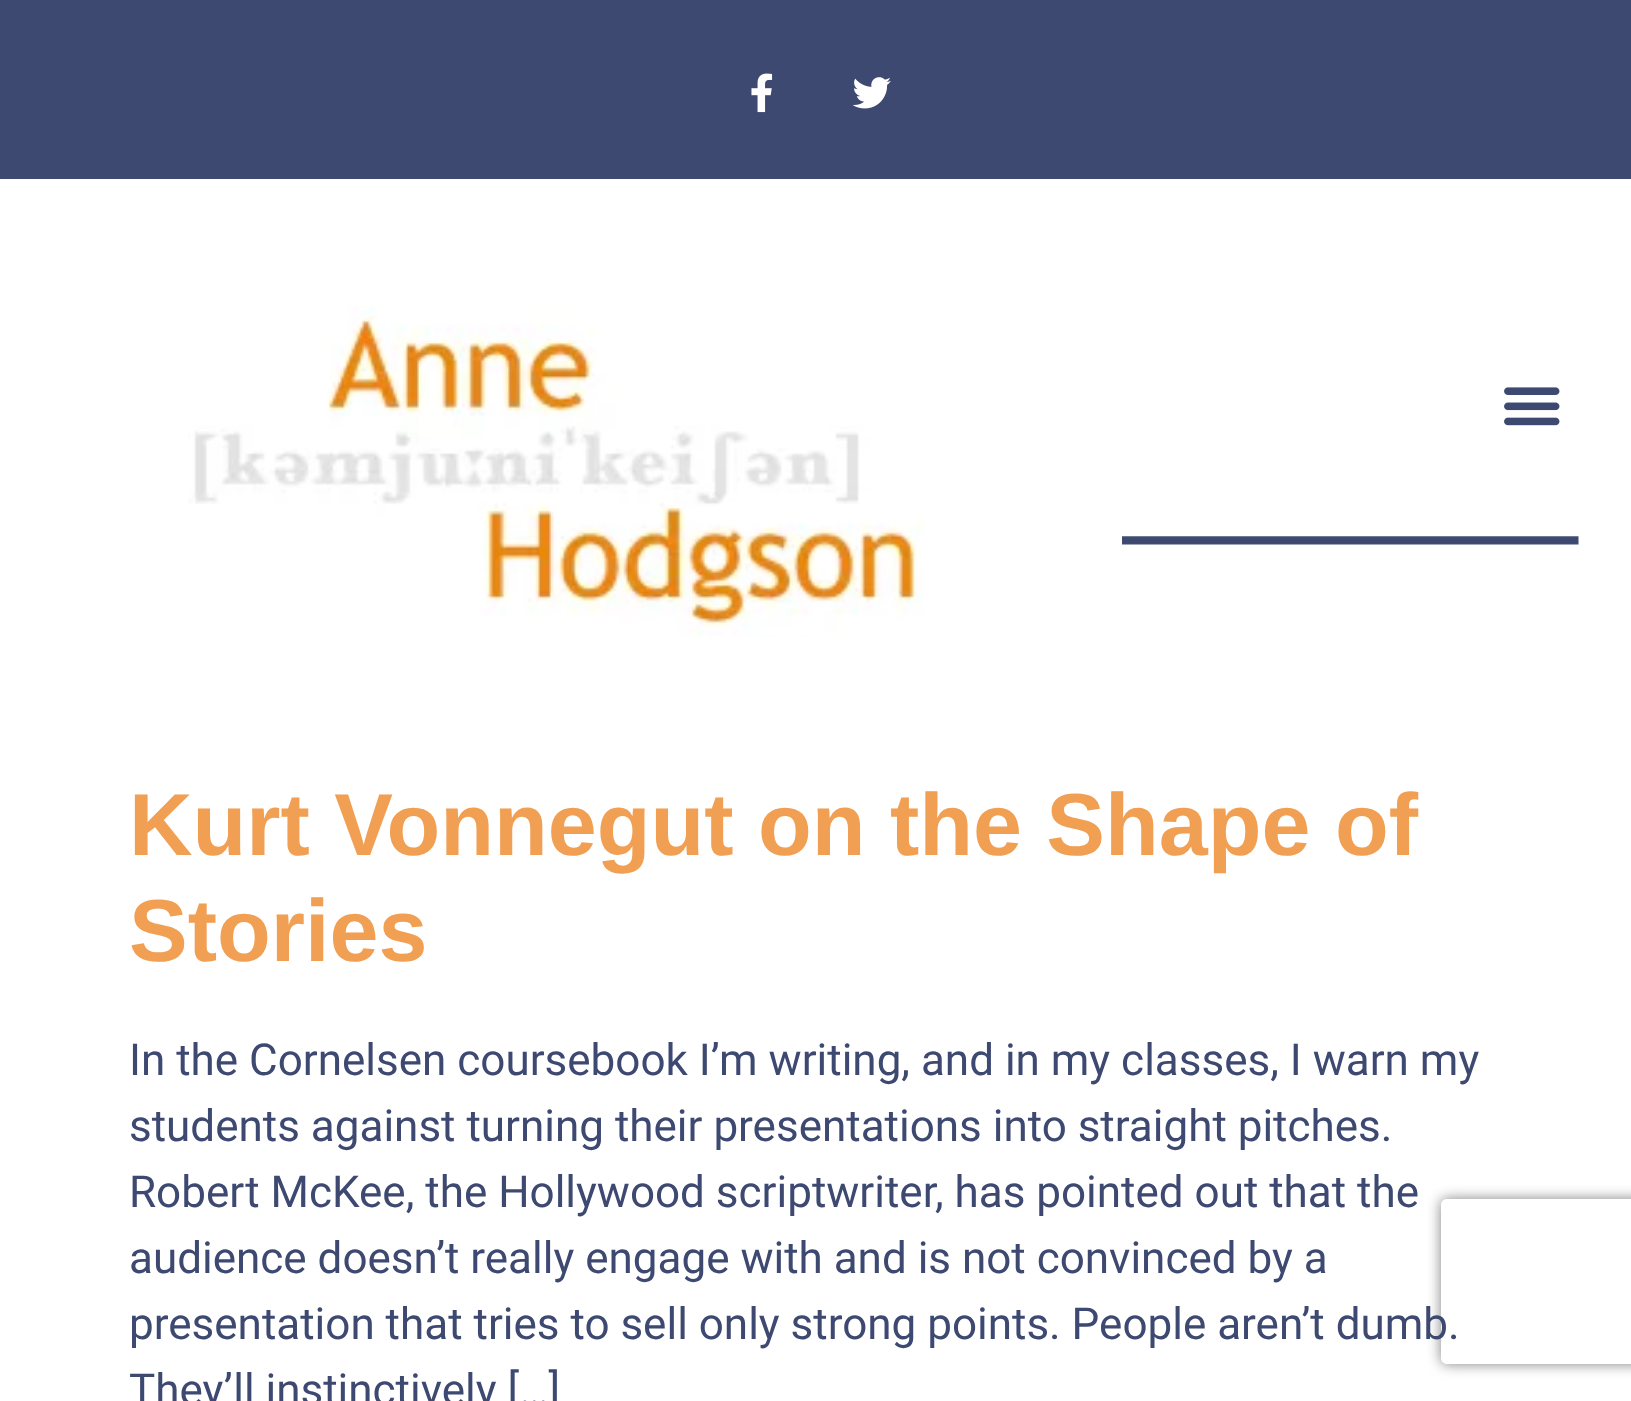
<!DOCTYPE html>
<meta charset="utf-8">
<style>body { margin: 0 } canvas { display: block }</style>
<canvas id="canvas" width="1631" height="1401"></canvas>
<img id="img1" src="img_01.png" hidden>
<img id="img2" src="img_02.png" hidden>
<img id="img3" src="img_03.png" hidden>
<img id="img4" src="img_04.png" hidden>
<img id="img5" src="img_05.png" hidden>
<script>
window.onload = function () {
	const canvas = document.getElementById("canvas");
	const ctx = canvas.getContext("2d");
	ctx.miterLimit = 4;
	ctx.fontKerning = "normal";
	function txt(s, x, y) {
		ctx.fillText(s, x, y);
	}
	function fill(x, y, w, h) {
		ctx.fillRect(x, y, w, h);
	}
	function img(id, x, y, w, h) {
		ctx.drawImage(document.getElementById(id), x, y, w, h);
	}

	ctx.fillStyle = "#FFFFFF";
	fill(0, 0, 1631, 1401);
	ctx.fillStyle = "#3D4971";
	fill(0, 0, 1631, 179);
	img("img1", 751, 73, 22, 40);
	img("img2", 852, 77, 39, 32);
	img("img3", 188, 305, 736, 332);
	img("img4", 1504, 387, 56, 39);
	img("img5", 1122, 536, 457, 9);
	ctx.save();
	ctx.beginPath();
	ctx.moveTo(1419, 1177);
	ctx.lineTo(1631, 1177);
	ctx.lineTo(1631, 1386);
	ctx.lineTo(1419, 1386);
	ctx.closePath();
	ctx.moveTo(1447, 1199);
	ctx.lineTo(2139, 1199);
	ctx.bezierCurveTo(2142.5, 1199, 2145, 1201.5, 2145, 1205);
	ctx.lineTo(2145, 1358);
	ctx.bezierCurveTo(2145, 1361.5, 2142.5, 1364, 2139, 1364);
	ctx.lineTo(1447, 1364);
	ctx.bezierCurveTo(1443.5, 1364, 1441, 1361.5, 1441, 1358);
	ctx.lineTo(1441, 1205);
	ctx.bezierCurveTo(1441, 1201.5, 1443.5, 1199, 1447, 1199);
	ctx.closePath();
	ctx.clip("evenodd");
	ctx.fillStyle = "#808080";
	ctx.filter = "blur(7px)";
	ctx.beginPath();
	ctx.roundRect(1441, 1199, 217, 165, 6);
	ctx.fill();
	ctx.filter = "none";
	ctx.restore();
	ctx.font = "bold 88px Liberation Sans";
	ctx.fillStyle = "#F19F53";
	txt("Kurt Vonnegut on the Shape of", 129, 855);
	txt("Stories", 129, 961);
	ctx.font = "44px Roboto";
	ctx.fillStyle = "#3D4971";
	txt("In the Cornelsen coursebook I’m writing, and in my classes, I warn my", 129, 1075);
	txt("students against turning their presentations into straight pitches.", 129, 1141);
	txt("Robert McKee, the Hollywood scriptwriter, has pointed out that the", 129, 1207);
	txt("audience doesn’t really engage with and is not convinced by a", 129, 1273);
	txt("presentation that tries to sell only strong points. People aren’t dumb.", 129, 1339);
	txt("They’ll instinctively […]", 129, 1405);
};
</script>
